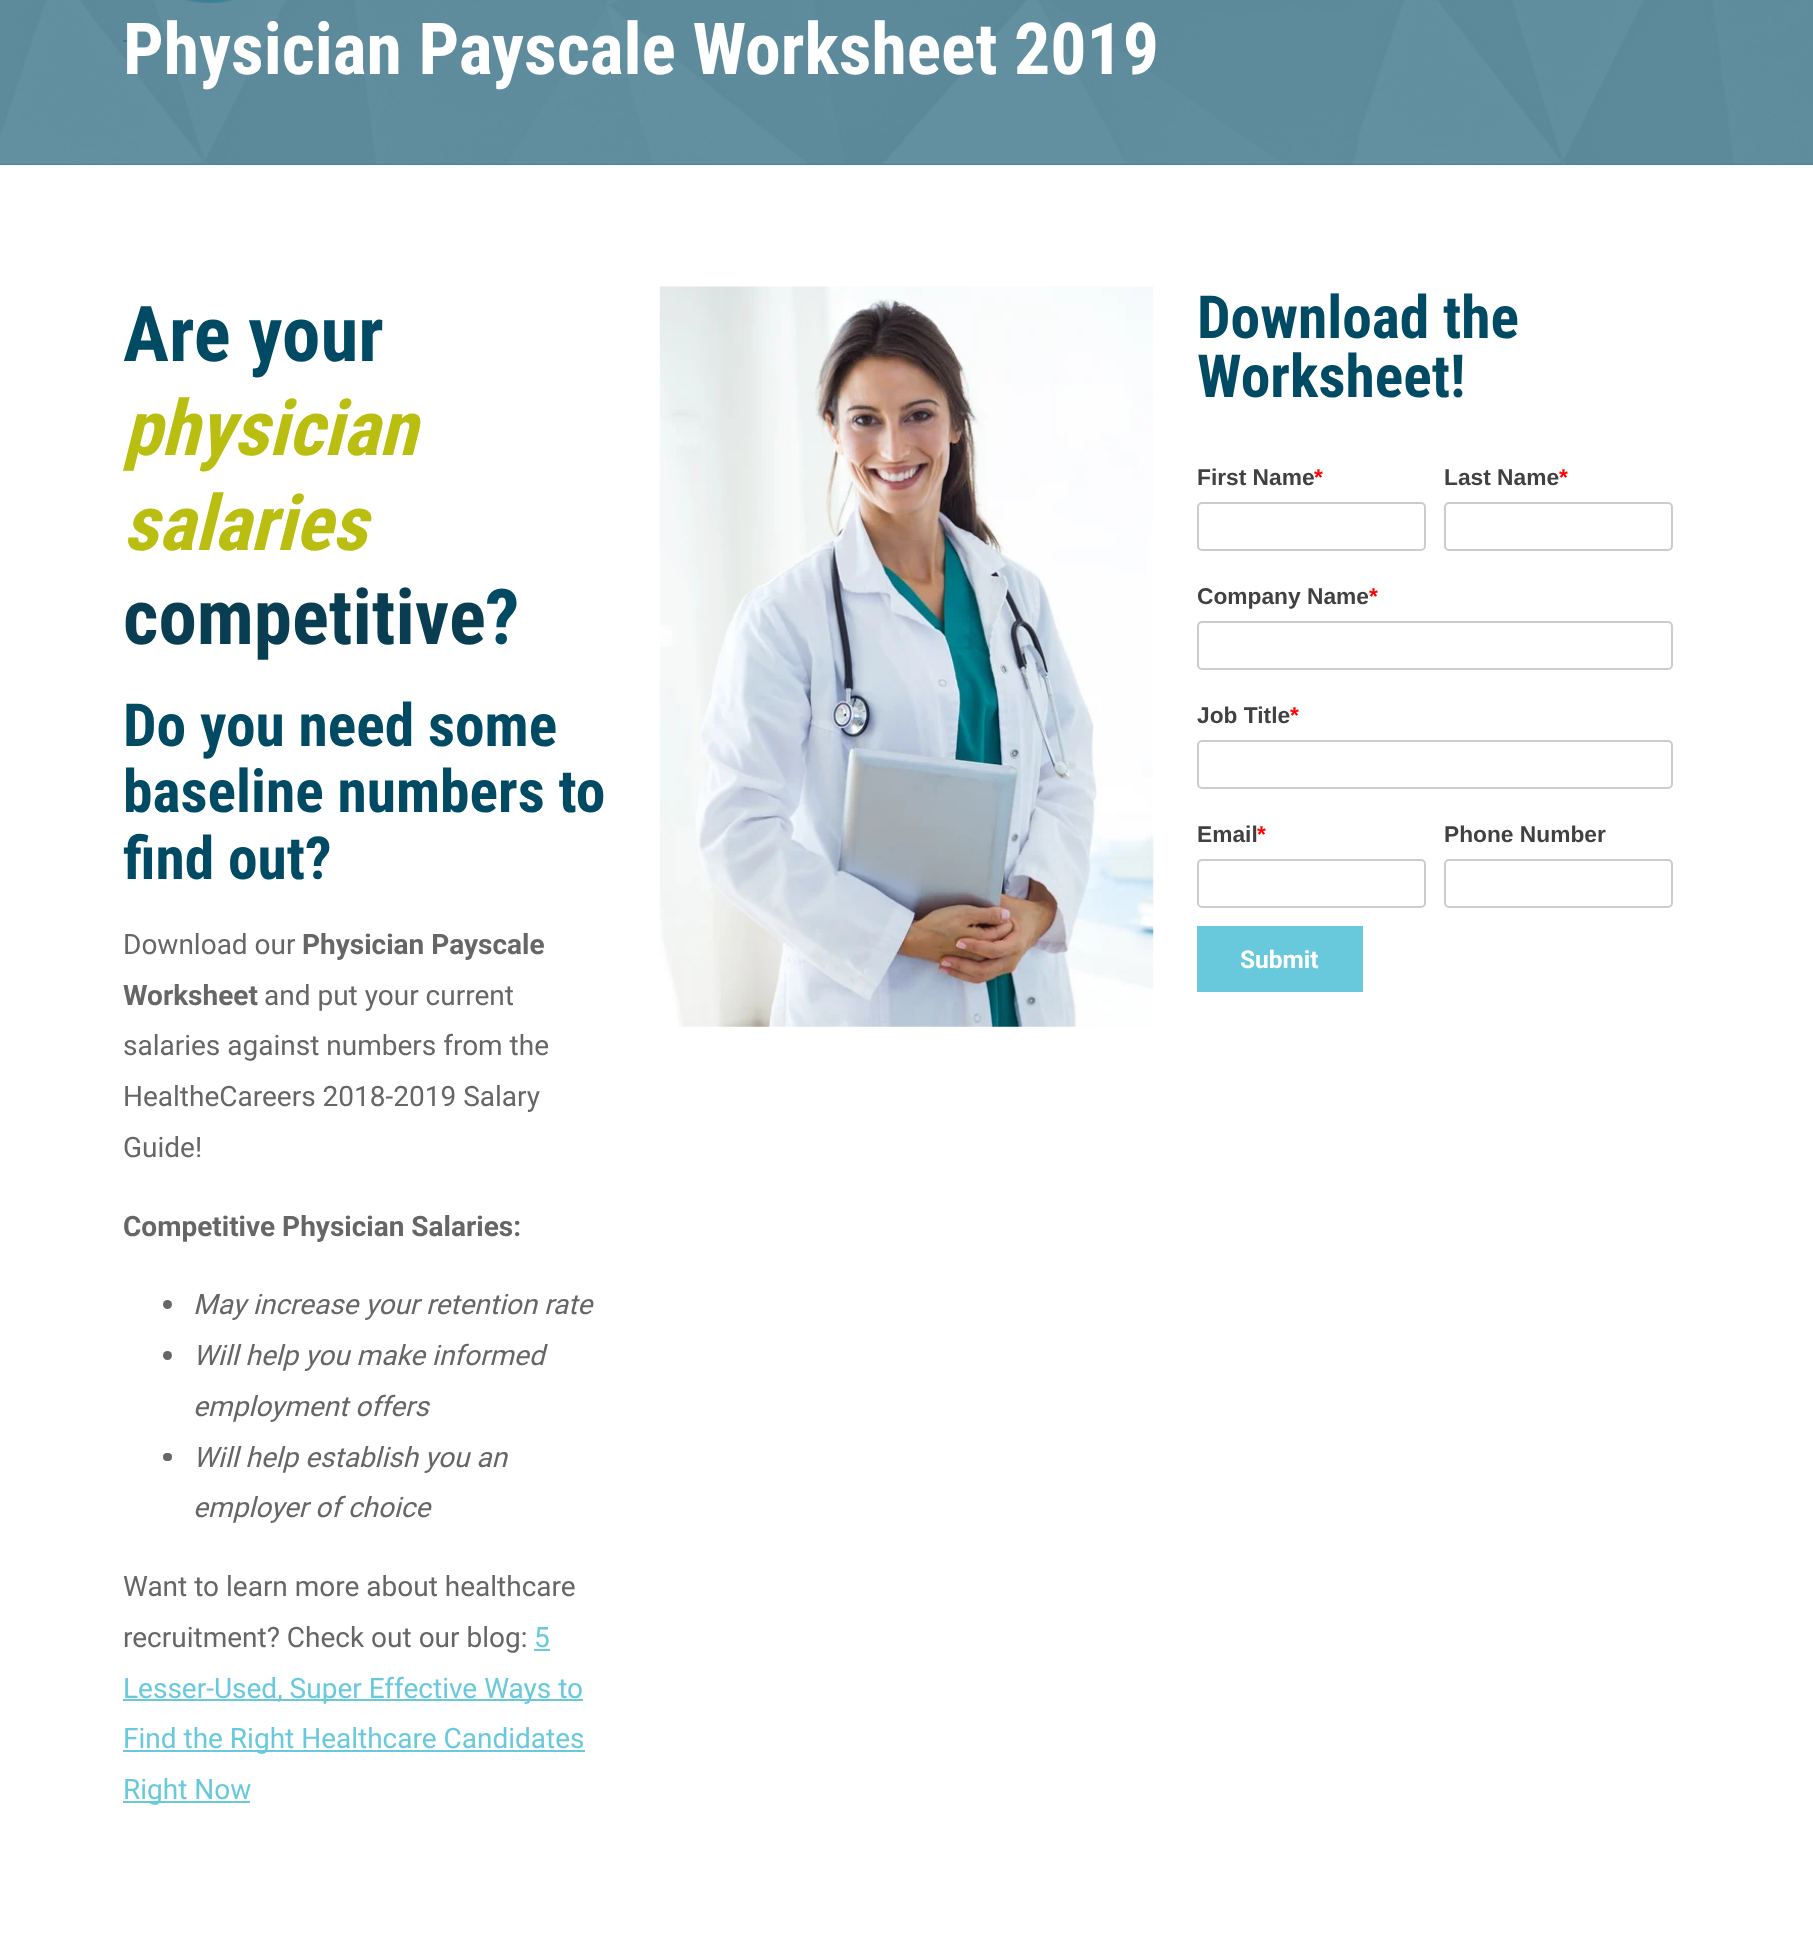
<!DOCTYPE html>
<meta charset="utf-8">
<style>body { margin: 0 } canvas { display: block }</style>
<canvas id="canvas" width="1813" height="1938"></canvas>
<img id="img1" src="img_01.png" hidden>
<img id="img2" src="img_02.png" hidden>
<img id="img3" src="img_03.png" hidden>
<script>
window.onload = function () {
	const canvas = document.getElementById("canvas");
	const ctx = canvas.getContext("2d");
	ctx.miterLimit = 4;
	ctx.fontKerning = "normal";
	function txt(s, x, y) {
		ctx.fillText(s, x, y);
	}
	function fill(x, y, w, h) {
		ctx.fillRect(x, y, w, h);
	}
	function round(x, y, w, h, r) {
		ctx.beginPath();
		ctx.roundRect(x, y, w, h, r);
		ctx.fill();
	}
	function img(id, x, y, w, h) {
		ctx.drawImage(document.getElementById(id), x, y, w, h);
	}

	ctx.fillStyle = "#FFFFFF";
	fill(0, 0, 1813, 1938);
	ctx.fillStyle = "#4D8093";
	fill(0, 0, 1813, 165);
	img("img1", 184, 0, 51, 3);
	ctx.fillStyle = "#1F7088";
	fill(123, 40, 7, 2);
	img("img2", 0, 0, 1813, 164);
	ctx.fillStyle = "#666666";
	ctx.beginPath();
	ctx.arc(167.5, 1304.5, 4.5, 0, Math.PI * 2);
	ctx.fill();
	ctx.beginPath();
	ctx.arc(167.5, 1355.5, 4.5, 0, Math.PI * 2);
	ctx.fill();
	round(163, 1453, 9, 8, 4);
	ctx.fillStyle = "#68C9DD";
	fill(534, 1649, 16, 2);
	fill(123, 1699, 460, 2);
	fill(123, 1750, 462, 2);
	fill(123, 1801, 127, 2);
	img("img3", 659, 286, 495, 741);
	ctx.beginPath();
	ctx.roundRect(1198, 503, 227, 47, 4);
	ctx.strokeStyle = "#CCCCCC";
	ctx.lineWidth = 2;
	ctx.stroke();
	ctx.beginPath();
	ctx.roundRect(1445, 503, 227, 47, 4);
	ctx.stroke();
	ctx.beginPath();
	ctx.roundRect(1198, 622, 474, 47, 4);
	ctx.stroke();
	ctx.beginPath();
	ctx.roundRect(1198, 741, 474, 47, 4);
	ctx.stroke();
	ctx.beginPath();
	ctx.roundRect(1198, 860, 227, 47, 4);
	ctx.stroke();
	ctx.beginPath();
	ctx.roundRect(1445, 860, 227, 47, 4);
	ctx.stroke();
	fill(1197, 926, 166, 66);
	ctx.font = "bold 71.75px Roboto Condensed";
	ctx.fillStyle = "#FFFFFF";
	txt("Physician Payscale Worksheet 2019", 123, 74);
	ctx.font = "bold 77px Roboto Condensed";
	ctx.fillStyle = "#004A64";
	txt("Are your", 123, 361);
	ctx.font = "italic bold 77px Roboto Condensed";
	ctx.fillStyle = "#B9BE10";
	txt("physician", 123, 455);
	txt("salaries", 123, 550);
	ctx.font = "bold 77px Roboto Condensed";
	ctx.fillStyle = "#093E52";
	txt("competitive", 123, 644);
	ctx.fillStyle = "#004A64";
	txt("?", 485, 644);
	ctx.font = "bold 59.5px Roboto Condensed";
	txt("Do you need some", 123, 746);
	txt("baseline numbers to", 123, 812);
	txt("find out?", 123, 879);
	ctx.font = "28px Roboto";
	ctx.fillStyle = "#666666";
	txt("Download our", 123, 954);
	ctx.font = "bold 28px Roboto";
	txt("Physician Payscale", 302, 954);
	txt("Worksheet", 123, 1005);
	ctx.font = "28px Roboto";
	txt("and put your current", 264, 1005);
	txt("salaries against numbers from the", 123, 1055);
	txt("HealtheCareers 2018-2019 Salary", 123, 1106);
	txt("Guide!", 123, 1157);
	ctx.font = "bold 28px Roboto";
	txt("Competitive Physician Salaries:", 123, 1236);
	ctx.font = "italic 28px Roboto";
	txt("May increase your retention rate", 193, 1314);
	txt("Will help you make informed", 193, 1365);
	txt("employment offers", 193, 1416);
	txt("Will help establish you an", 193, 1467);
	txt("employer of choice", 193, 1517);
	ctx.font = "28px Roboto";
	txt("Want to learn more about healthcare", 123, 1596);
	txt("recruitment? Check out our blog:", 123, 1647);
	ctx.fillStyle = "#68C9DD";
	txt("5", 534, 1647);
	txt("Lesser-Used, Super Effective Ways to", 123, 1698);
	txt("Find the Right Healthcare Candidates", 123, 1748);
	txt("Right Now", 123, 1799);
	ctx.font = "bold 59.5px Roboto Condensed";
	ctx.fillStyle = "#004A64";
	txt("Download the", 1197, 338);
	txt("Worksheet!", 1197, 397);
	ctx.font = "bold 22.75px Liberation Sans";
	ctx.fillStyle = "#414141";
	txt("First Name", 1197, 485);
	ctx.fillStyle = "#FF0000";
	txt("*", 1314, 485);
	ctx.fillStyle = "#414141";
	txt("Last Name", 1444, 485);
	ctx.fillStyle = "#FF0000";
	txt("*", 1559, 485);
	ctx.fillStyle = "#414141";
	txt("Company Name", 1197, 604);
	ctx.fillStyle = "#FF0000";
	txt("*", 1369, 604);
	ctx.fillStyle = "#414141";
	txt("Job Title", 1197, 723);
	ctx.fillStyle = "#FF0000";
	txt("*", 1290, 723);
	ctx.fillStyle = "#414141";
	txt("Email", 1197, 842);
	ctx.fillStyle = "#FF0000";
	txt("*", 1257, 842);
	ctx.fillStyle = "#414141";
	txt("Phone Number", 1444, 842);
	ctx.font = "bold 24.5px Roboto";
	ctx.fillStyle = "#FFFFFF";
	txt("Submit", 1240, 968);
};
</script>
